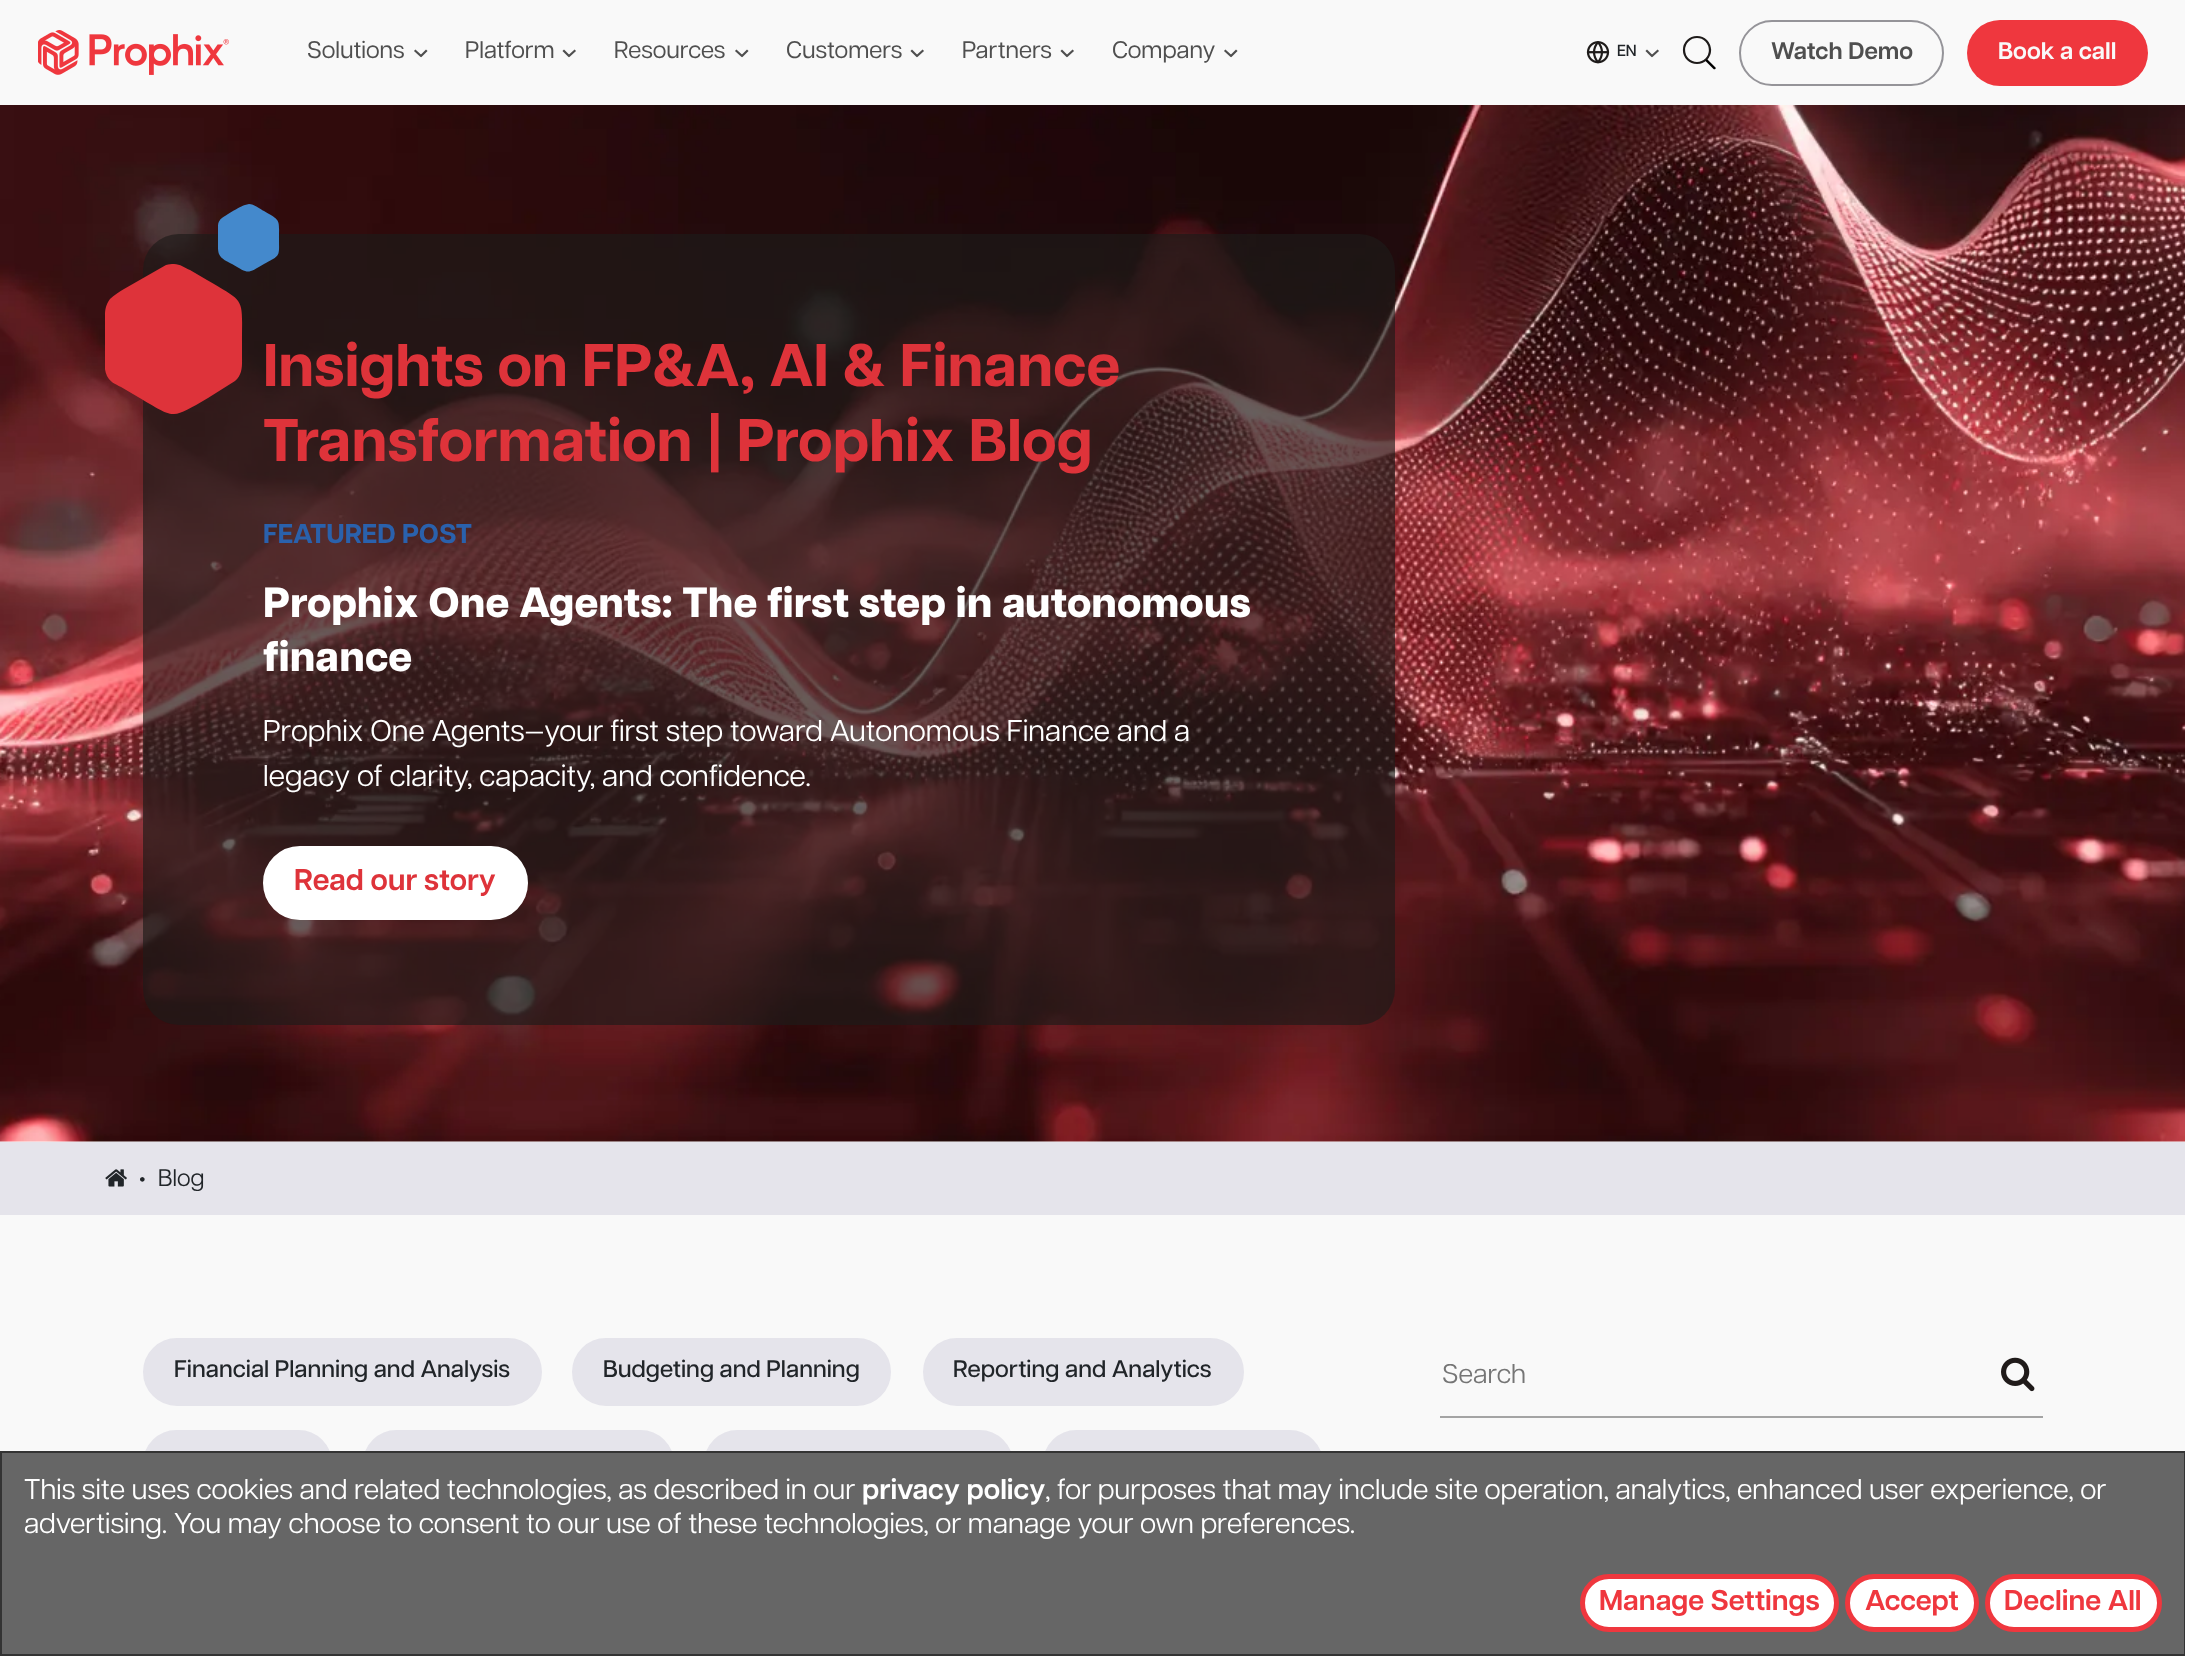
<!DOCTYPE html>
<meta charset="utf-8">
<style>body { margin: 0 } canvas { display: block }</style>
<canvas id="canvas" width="2185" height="1656"></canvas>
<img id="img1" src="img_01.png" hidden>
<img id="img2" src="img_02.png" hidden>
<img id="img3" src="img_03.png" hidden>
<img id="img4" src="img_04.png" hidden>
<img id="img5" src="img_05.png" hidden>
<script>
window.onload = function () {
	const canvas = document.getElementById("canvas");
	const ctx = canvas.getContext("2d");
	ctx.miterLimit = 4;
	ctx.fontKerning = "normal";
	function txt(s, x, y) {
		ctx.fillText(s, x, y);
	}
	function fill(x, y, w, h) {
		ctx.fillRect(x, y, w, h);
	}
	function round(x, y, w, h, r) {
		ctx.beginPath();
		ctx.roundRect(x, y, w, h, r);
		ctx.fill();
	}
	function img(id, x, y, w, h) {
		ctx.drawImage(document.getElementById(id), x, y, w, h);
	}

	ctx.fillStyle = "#F9F9F9";
	fill(0, 0, 2185, 1656);
	img("img1", 38, 30, 191, 45);
	ctx.beginPath();
	ctx.moveTo(415.5, 51);
	ctx.lineTo(421, 56);
	ctx.lineTo(426, 51);
	ctx.strokeStyle = "#4F4F4F";
	ctx.lineWidth = 2.2;
	ctx.lineCap = "square";
	ctx.lineJoin = "round";
	ctx.stroke();
	ctx.beginPath();
	ctx.moveTo(564, 51);
	ctx.lineTo(569, 56);
	ctx.lineTo(574.5, 51);
	ctx.stroke();
	ctx.beginPath();
	ctx.moveTo(736.5, 51);
	ctx.lineTo(742, 56);
	ctx.lineTo(747, 51);
	ctx.stroke();
	ctx.beginPath();
	ctx.moveTo(912, 51);
	ctx.lineTo(917, 56);
	ctx.lineTo(922.5, 51);
	ctx.stroke();
	ctx.beginPath();
	ctx.moveTo(1062, 51);
	ctx.lineTo(1067, 56);
	ctx.lineTo(1072.5, 51);
	ctx.stroke();
	ctx.beginPath();
	ctx.moveTo(1225.5, 51);
	ctx.lineTo(1231, 56);
	ctx.lineTo(1236, 51);
	ctx.stroke();
	img("img2", 1586, 41, 24, 23);
	ctx.beginPath();
	ctx.moveTo(1647, 51);
	ctx.lineTo(1652, 56);
	ctx.lineTo(1657.5, 51);
	ctx.stroke();
	ctx.beginPath();
	ctx.arc(1697, 50, 13, 0, Math.PI * 2);
	ctx.strokeStyle = "#1E1B1A";
	ctx.stroke();
	ctx.fillStyle = "#000000";
	ctx.beginPath();
	ctx.moveTo(1713.5, 69);
	ctx.bezierCurveTo(1714.5, 70, 1716.5, 68.5, 1715.5, 67.5);
	ctx.closePath();
	ctx.moveTo(1706, 60);
	ctx.lineTo(1705.5, 61);
	ctx.lineTo(1713.5, 69);
	ctx.lineTo(1715.5, 67.5);
	ctx.lineTo(1707, 59);
	ctx.closePath();
	ctx.fill();
	ctx.beginPath();
	ctx.roundRect(1740, 21, 203, 64, 32);
	ctx.strokeStyle = "#959499";
	ctx.lineWidth = 2;
	ctx.lineJoin = "miter";
	ctx.stroke();
	ctx.fillStyle = "#EF373E";
	round(1967, 20, 181, 66, 33);
	img("img3", 0, 105, 2185, 1037);
	ctx.fillStyle = "rgba(30, 27, 26, 0.67)";
	round(143, 234, 1252, 791, 36);
	ctx.save();
	ctx.beginPath();
	ctx.rect(105, 264, 138, 150);
	ctx.clip();
	ctx.fillStyle = "#DE333A";
	ctx.beginPath();
	ctx.moveTo(242, 341);
	ctx.lineTo(242, 356);
	ctx.bezierCurveTo(242, 365, 243, 374, 235, 381);
	ctx.lineTo(208, 398);
	ctx.bezierCurveTo(170, 420, 176, 419, 138, 397);
	ctx.lineTo(121, 387);
	ctx.bezierCurveTo(115, 384, 110, 382, 107, 376);
	ctx.bezierCurveTo(103, 368, 105, 355, 105, 347);
	ctx.lineTo(105, 315);
	ctx.bezierCurveTo(105, 310, 106, 304, 110, 299);
	ctx.bezierCurveTo(114, 295, 119, 292, 124, 289);
	ctx.lineTo(166, 265);
	ctx.bezierCurveTo(169, 264, 171, 264, 174, 264);
	ctx.bezierCurveTo(180, 264, 185, 268, 190, 270);
	ctx.lineTo(207, 280);
	ctx.bezierCurveTo(246, 303, 242, 297, 242, 341);
	ctx.closePath();
	ctx.fill();
	ctx.restore();
	ctx.save();
	ctx.beginPath();
	ctx.rect(218, 204, 63, 68);
	ctx.clip();
	ctx.fillStyle = "#4489CC";
	ctx.beginPath();
	ctx.moveTo(279, 238);
	ctx.bezierCurveTo(279, 257, 281, 255, 264, 264);
	ctx.bezierCurveTo(247, 274, 249, 274, 232, 264);
	ctx.bezierCurveTo(228, 262, 221, 259, 219, 254);
	ctx.bezierCurveTo(217, 250, 218, 232, 218, 227);
	ctx.bezierCurveTo(218, 225, 218, 222, 220, 220);
	ctx.bezierCurveTo(222, 217, 241, 206, 245, 205);
	ctx.lineTo(249, 204);
	ctx.bezierCurveTo(254, 204, 260, 209, 264, 211);
	ctx.bezierCurveTo(281, 221, 279, 219, 279, 238);
	ctx.closePath();
	ctx.fill();
	ctx.restore();
	ctx.fillStyle = "#FFFFFF";
	ctx.beginPath();
	ctx.roundRect(264, 847, 263, 72, 36);
	ctx.fill();
	ctx.strokeStyle = "#FFFFFF";
	ctx.stroke();
	ctx.fillStyle = "#E5E4EB";
	fill(0, 1142, 2185, 73);
	img("img4", 105, 1169, 22, 18);
	ctx.beginPath();
	ctx.roundRect(144, 1339, 397, 66, 33);
	ctx.fill();
	ctx.strokeStyle = "#E5E4EB";
	ctx.stroke();
	ctx.beginPath();
	ctx.roundRect(573, 1339, 317, 66, 33);
	ctx.fill();
	ctx.stroke();
	ctx.beginPath();
	ctx.roundRect(924, 1339, 319, 66, 33);
	ctx.fill();
	ctx.stroke();
	ctx.beginPath();
	ctx.roundRect(144, 1431, 187, 65, 32.5);
	ctx.fill();
	ctx.stroke();
	ctx.beginPath();
	ctx.roundRect(364, 1431, 309, 65, 32.5);
	ctx.fill();
	ctx.stroke();
	ctx.beginPath();
	ctx.roundRect(705, 1431, 307, 65, 32.5);
	ctx.fill();
	ctx.stroke();
	ctx.beginPath();
	ctx.roundRect(1044, 1431, 278, 65, 32.5);
	ctx.fill();
	ctx.stroke();
	ctx.fillStyle = "#A4A4A4";
	fill(1440, 1416, 603, 2);
	img("img5", 2001, 1357, 34, 35);
	ctx.fillStyle = "#666666";
	ctx.beginPath();
	ctx.rect(1, 1452, 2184, 203);
	ctx.fill();
	ctx.strokeStyle = "#333333";
	ctx.stroke();
	ctx.fillStyle = "#FFFFFF";
	ctx.beginPath();
	ctx.roundRect(1582.5, 1576.5, 254, 53, 26.5);
	ctx.fill();
	ctx.strokeStyle = "#EF373E";
	ctx.lineWidth = 5;
	ctx.stroke();
	ctx.beginPath();
	ctx.roundRect(1847.5, 1576.5, 129, 53, 26.5);
	ctx.fill();
	ctx.stroke();
	ctx.beginPath();
	ctx.roundRect(1987.5, 1576.5, 172, 53, 26.5);
	ctx.fill();
	ctx.stroke();
	ctx.font = "24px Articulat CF";
	ctx.fillStyle = "#4F4F4F";
	txt("Solutions", 307, 58);
	txt("Platform", 465, 58);
	txt("Resources", 614, 58);
	txt("Customers", 786, 58);
	txt("Partners", 962, 58);
	txt("Company", 1112, 58);
	ctx.font = "500 16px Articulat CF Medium";
	ctx.fillStyle = "#212529";
	txt("EN", 1617, 56);
	ctx.font = "600 24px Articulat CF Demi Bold";
	ctx.fillStyle = "#4F4F4F";
	txt("Watch Demo", 1771, 59);
	ctx.fillStyle = "#F9F9F9";
	txt("Book a call", 1998, 59);
	ctx.font = "bold 60px Articulat CF";
	ctx.fillStyle = "#DE333A";
	txt("Insights on FP&A, AI & Finance", 263, 386);
	txt("Transformation | Prophix Blog", 263, 461);
	ctx.font = "bold 27px Articulat CF";
	ctx.fillStyle = "#2A61AC";
	txt("FEATURED POST", 263, 543);
	ctx.font = "800 42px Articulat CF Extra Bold";
	ctx.fillStyle = "#FFFFFF";
	txt("Prophix One Agents: The first step in autonomous", 263, 617);
	txt("finance", 263, 671);
	ctx.font = "30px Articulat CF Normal";
	txt("Prophix One Agents—your first step toward Autonomous Finance and a", 263, 741);
	txt("legacy of clarity, capacity, and confidence.", 263, 786);
	ctx.font = "600 30px Articulat CF Demi Bold";
	ctx.fillStyle = "#DE333A";
	txt("Read our story", 294, 890);
	ctx.font = "800 24px Articulat CF Extra Bold";
	ctx.fillStyle = "#212529";
	txt("·", 139, 1186);
	ctx.font = "24px Articulat CF Normal";
	txt("Blog", 158, 1186);
	ctx.font = "500 24px Articulat CF Medium";
	txt("Financial Planning and Analysis", 174, 1377);
	txt("Budgeting and Planning", 603, 1377);
	txt("Reporting and Analytics", 953, 1377);
	ctx.save();
	ctx.beginPath();
	ctx.rect(1443, 1364, 548, 27);
	ctx.clip();
	ctx.font = "27px Articulat CF Normal";
	ctx.fillStyle = "#757575";
	txt("Search", 1442, 1383);
	ctx.restore();
	ctx.font = "28.5px Articulat CF Normal";
	ctx.fillStyle = "#FFFFFF";
	txt("This site uses cookies and related technologies, as described in our", 24, 1499);
	ctx.font = "600 28.5px Articulat CF Demi Bold";
	txt("privacy policy", 862, 1499);
	ctx.font = "28.5px Articulat CF Normal";
	txt(", for purposes that may include site operation, analytics, enhanced user experience, or", 1045, 1499);
	txt("advertising. You may choose to consent to our use of these technologies, or manage your own preferences.", 24, 1533);
	ctx.font = "600 28.5px Articulat CF Demi Bold";
	ctx.fillStyle = "#EF373E";
	txt("Manage Settings", 1599, 1610);
	txt("Accept", 1865, 1610);
	txt("Decline All", 2004, 1610);
};
</script>
